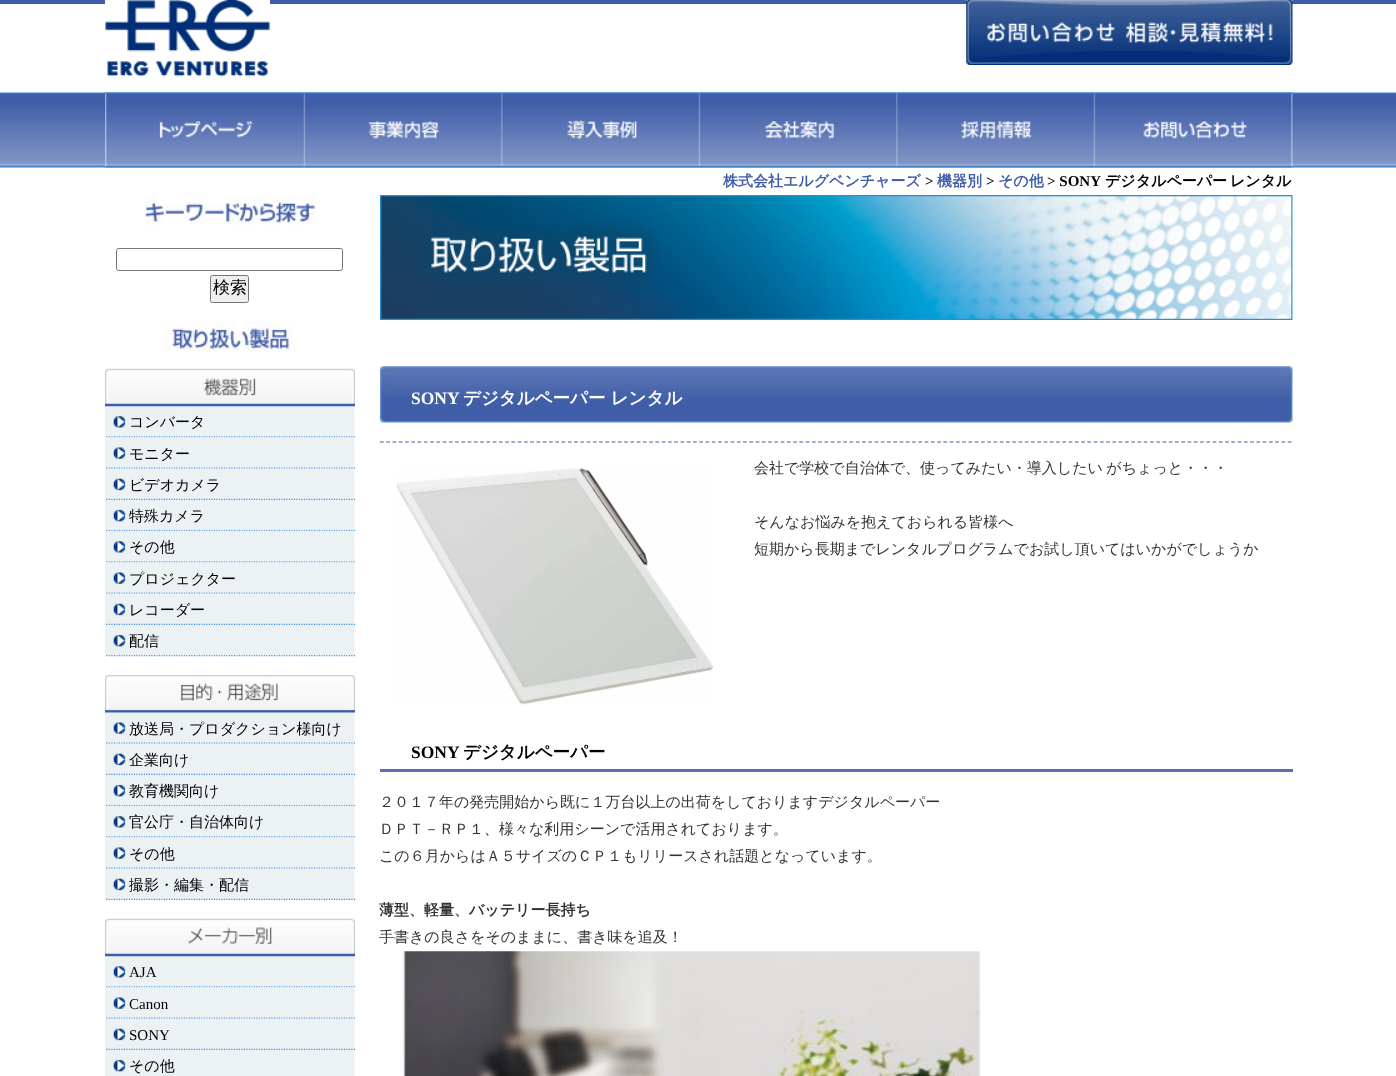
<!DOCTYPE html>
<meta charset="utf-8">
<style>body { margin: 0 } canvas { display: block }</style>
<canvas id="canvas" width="1396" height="1076"></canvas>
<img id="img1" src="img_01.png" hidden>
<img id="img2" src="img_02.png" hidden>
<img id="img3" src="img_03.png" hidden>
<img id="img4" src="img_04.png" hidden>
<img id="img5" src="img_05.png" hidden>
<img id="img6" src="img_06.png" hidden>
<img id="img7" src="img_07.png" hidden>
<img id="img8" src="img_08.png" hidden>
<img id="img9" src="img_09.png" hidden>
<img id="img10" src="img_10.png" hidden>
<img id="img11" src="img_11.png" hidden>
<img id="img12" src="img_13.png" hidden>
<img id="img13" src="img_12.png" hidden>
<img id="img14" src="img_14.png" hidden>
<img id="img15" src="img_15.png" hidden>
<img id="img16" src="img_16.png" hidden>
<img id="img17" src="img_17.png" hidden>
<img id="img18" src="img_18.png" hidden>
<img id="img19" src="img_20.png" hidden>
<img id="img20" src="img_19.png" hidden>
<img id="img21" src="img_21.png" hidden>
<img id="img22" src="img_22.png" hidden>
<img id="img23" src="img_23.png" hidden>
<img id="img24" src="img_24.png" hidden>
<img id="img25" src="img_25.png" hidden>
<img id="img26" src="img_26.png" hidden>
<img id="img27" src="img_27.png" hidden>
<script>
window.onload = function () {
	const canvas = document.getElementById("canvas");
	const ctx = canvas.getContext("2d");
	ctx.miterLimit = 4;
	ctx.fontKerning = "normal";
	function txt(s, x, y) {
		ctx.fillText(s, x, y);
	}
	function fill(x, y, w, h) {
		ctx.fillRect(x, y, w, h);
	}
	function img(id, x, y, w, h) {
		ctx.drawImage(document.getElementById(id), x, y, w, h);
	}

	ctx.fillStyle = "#FFFFFF";
	fill(0, 0, 1396, 1076);
	ctx.fillStyle = "#3F5DA8";
	fill(0, 0, 1396, 4);
	img("img1", 105, 0, 165, 77);
	img("img2", 966, 0, 327, 65);
	img("img3", 0, 92, 1396, 76);
	img("img4", 105, 92, 199, 76);
	img("img5", 303, 92, 199, 76);
	img("img6", 501, 92, 198, 76);
	img("img7", 698, 92, 199, 76);
	img("img8", 896, 92, 198, 76);
	img("img9", 1093, 92, 200, 76);
	img("img10", 145, 195, 171, 30);
	ctx.beginPath();
	ctx.roundRect(116.5, 248.5, 226, 22, 2);
	ctx.strokeStyle = "#767676";
	ctx.stroke();
	ctx.fillStyle = "#EFEFEF";
	ctx.beginPath();
	ctx.roundRect(210.5, 275.5, 38, 27, 2);
	ctx.fill();
	ctx.stroke();
	img("img11", 165, 321, 130, 31);
	img("img12", 105, 406, 250, 32);
	img("img13", 105, 368, 250, 39);
	img("img14", 105, 437, 250, 32);
	img("img15", 105, 468, 250, 32);
	img("img16", 105, 500, 250, 32);
	img("img17", 105, 531, 250, 32);
	img("img18", 105, 562, 250, 32);
	img("img15", 105, 593, 250, 32);
	img("img16", 105, 625, 250, 32);
	img("img19", 105, 712, 250, 32);
	img("img20", 105, 675, 250, 38);
	img("img15", 105, 743, 250, 32);
	img("img21", 105, 775, 250, 32);
	img("img17", 105, 806, 250, 32);
	img("img14", 105, 837, 250, 32);
	img("img15", 105, 868, 250, 32);
	img("img12", 105, 956, 250, 32);
	img("img22", 105, 918, 250, 39);
	img("img14", 105, 987, 250, 32);
	img("img15", 105, 1018, 250, 32);
	img("img23", 105, 1050, 250, 26);
	img("img24", 380, 195, 913, 125);
	img("img25", 380, 366, 913, 57);
	ctx.beginPath();
	ctx.moveTo(380, 442);
	ctx.lineTo(1292.5, 442);
	ctx.strokeStyle = "#3F5DA7";
	ctx.lineWidth = 1.2;
	ctx.setLineDash([3.75, 2.51]);
	ctx.stroke();
	img("img26", 396, 468, 317, 237);
	ctx.fillStyle = "#5771B3";
	fill(380, 769, 913, 3);
	img("img27", 403, 951, 578, 125);
	ctx.font = "bold 15px WenQuanYi Zen Hei";
	ctx.fillStyle = "#3F5DA8";
	txt("株式会社エルグベンチャーズ", 723, 186);
	ctx.font = "bold 15px Liberation Serif";
	ctx.fillStyle = "#000000";
	txt(">", 925, 186);
	ctx.font = "bold 15px WenQuanYi Zen Hei";
	ctx.fillStyle = "#3F5DA8";
	txt("機器別", 937, 186);
	ctx.font = "bold 15px Liberation Serif";
	ctx.fillStyle = "#000000";
	txt(">", 986, 186);
	ctx.font = "bold 15px WenQuanYi Zen Hei";
	ctx.fillStyle = "#3F5DA8";
	txt("その他", 998, 186);
	ctx.font = "bold 15px Liberation Serif";
	ctx.fillStyle = "#000000";
	txt("> SONY", 1047, 186);
	ctx.font = "bold 15px WenQuanYi Zen Hei";
	txt("デジタルペーパー", 1105, 186);
	txt("レンタル", 1230, 186);
	ctx.font = "500 17px WenQuanYi Zen Hei";
	txt("検索", 213, 293);
	ctx.font = "500 15px WenQuanYi Zen Hei";
	txt("コンバータ", 129, 427);
	txt("モニター", 129, 459);
	txt("ビデオカメラ", 129, 490);
	txt("特殊カメラ", 129, 521);
	txt("その他", 129, 552);
	txt("プロジェクター", 129, 584);
	txt("レコーダー", 129, 615);
	txt("配信", 129, 646);
	txt("放送局・プロダクション様向け", 129, 734);
	txt("企業向け", 129, 765);
	txt("教育機関向け", 129, 796);
	txt("官公庁・自治体向け", 129, 827);
	txt("その他", 129, 859);
	txt("撮影・編集・配信", 129, 890);
	ctx.font = "15px Liberation Serif";
	txt("AJA", 129, 977);
	txt("Canon", 129, 1009);
	txt("SONY", 129, 1040);
	ctx.font = "500 15px WenQuanYi Zen Hei";
	txt("その他", 129, 1071);
	ctx.font = "bold 17.5px Liberation Serif";
	ctx.fillStyle = "#FFFFFF";
	txt("SONY", 411, 404);
	ctx.font = "bold 17.5px WenQuanYi Zen Hei";
	txt("デジタルペーパー レンタル", 463, 404);
	ctx.wordSpacing = "-1px";
	ctx.font = "500 15px WenQuanYi Zen Hei";
	ctx.fillStyle = "#333333";
	txt("会社で学校で自治体で、使ってみたい・導入したい がちょっと・・・", 754, 473);
	ctx.wordSpacing = "0px";
	txt("そんなお悩みを抱えておられる皆様へ", 754, 527);
	txt("短期から長期までレンタルプログラムでお試し頂いてはいかがでしょうか", 754, 554);
	ctx.font = "bold 17.5px Liberation Serif";
	ctx.fillStyle = "#000000";
	txt("SONY", 411, 758);
	ctx.font = "bold 17.5px WenQuanYi Zen Hei";
	txt("デジタルペーパー", 463, 758);
	ctx.font = "500 15px WenQuanYi Zen Hei";
	ctx.fillStyle = "#333333";
	txt("２０１７年の発売開始から既に１万台以上の出荷をしておりますデジタルペーパー", 379, 807);
	txt("ＤＰＴ－ＲＰ１、様々な利用シーンで活用されております。", 379, 834);
	txt("この６月からはＡ５サイズのＣＰ１もリリースされ話題となっています。", 379, 861);
	ctx.font = "bold 15px WenQuanYi Zen Hei";
	txt("薄型、軽量、バッテリー長持ち", 379, 915);
	ctx.font = "500 15px WenQuanYi Zen Hei";
	txt("手書きの良さをそのままに、書き味を追及！", 379, 942);
};
</script>
